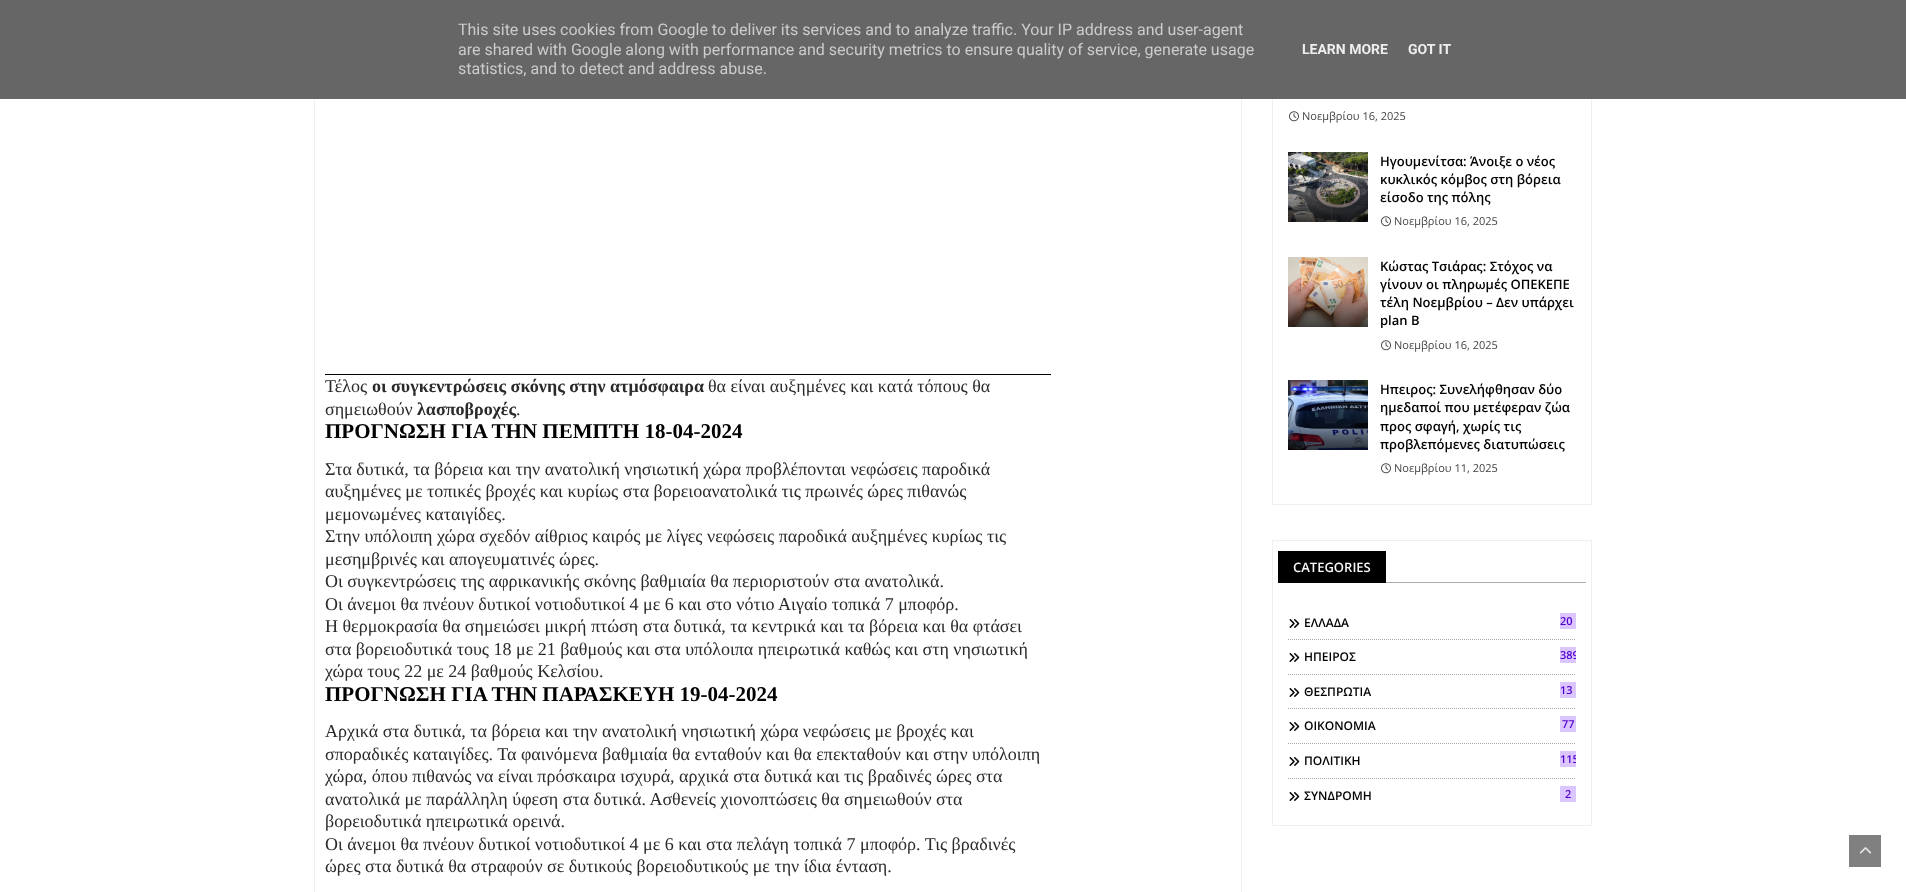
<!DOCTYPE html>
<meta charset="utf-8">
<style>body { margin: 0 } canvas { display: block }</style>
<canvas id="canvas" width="1906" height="892"></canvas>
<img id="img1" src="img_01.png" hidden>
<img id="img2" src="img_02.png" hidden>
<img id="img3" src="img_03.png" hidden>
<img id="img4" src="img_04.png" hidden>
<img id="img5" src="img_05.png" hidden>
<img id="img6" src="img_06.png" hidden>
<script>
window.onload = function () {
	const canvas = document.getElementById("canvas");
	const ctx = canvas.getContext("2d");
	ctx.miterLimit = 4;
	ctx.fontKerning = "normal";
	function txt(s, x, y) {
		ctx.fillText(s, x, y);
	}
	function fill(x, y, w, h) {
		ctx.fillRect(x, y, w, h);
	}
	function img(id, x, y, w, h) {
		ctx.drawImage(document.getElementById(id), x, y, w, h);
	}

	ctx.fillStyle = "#FFFFFF";
	fill(0, 0, 1906, 892);
	ctx.strokeStyle = "#EFEFEF";
	ctx.strokeRect(314.5, -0.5, 927, 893);
	ctx.strokeRect(1272.5, -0.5, 319, 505);
	ctx.fillStyle = "#666666";
	fill(0, 0, 1906, 99);
	ctx.fillStyle = "#000000";
	fill(325, 374, 726, 1);
	img("img1", 1289, 111, 10, 11);
	img("img2", 1288, 152, 80, 70);
	img("img1", 1381, 216, 10, 11);
	img("img3", 1288, 257, 80, 70);
	img("img1", 1381, 340, 10, 11);
	img("img4", 1288, 380, 80, 70);
	img("img1", 1381, 463, 10, 11);
	ctx.strokeRect(1272.5, 540.5, 319, 285);
	ctx.fillStyle = "#ADADAD";
	fill(1386, 582, 200, 1);
	ctx.fillStyle = "#000000";
	fill(1278, 551, 108, 32);
	img("img5", 1289, 619, 11, 9);
	ctx.fillStyle = "#DCC6FF";
	fill(1560, 613, 16, 16);
	ctx.beginPath();
	ctx.moveTo(1288, 639.5);
	ctx.lineTo(1576, 639.5);
	ctx.strokeStyle = "#A9A9A9";
	ctx.setLineDash([1, 1]);
	ctx.stroke();
	img("img5", 1289, 653, 11, 9);
	fill(1560, 647, 16, 16);
	ctx.beginPath();
	ctx.moveTo(1288, 674.5);
	ctx.lineTo(1576, 674.5);
	ctx.stroke();
	img("img5", 1289, 688, 11, 9);
	fill(1560, 682, 16, 16);
	ctx.beginPath();
	ctx.moveTo(1288, 708.5);
	ctx.lineTo(1576, 708.5);
	ctx.stroke();
	img("img5", 1289, 722, 11, 9);
	fill(1560, 716, 16, 16);
	ctx.beginPath();
	ctx.moveTo(1288, 743.5);
	ctx.lineTo(1576, 743.5);
	ctx.stroke();
	img("img5", 1289, 757, 11, 9);
	fill(1560, 751, 16, 16);
	ctx.beginPath();
	ctx.moveTo(1288, 778.5);
	ctx.lineTo(1576, 778.5);
	ctx.stroke();
	img("img5", 1289, 792, 11, 9);
	fill(1560, 786, 16, 16);
	ctx.fillStyle = "#808080";
	fill(1849, 835, 32, 32);
	img("img6", 1859, 847, 13, 7);
	ctx.font = "16px Roboto";
	ctx.fillStyle = "#CCCCCC";
	txt("This site uses cookies from Google to deliver its services and to analyze traffic. Your IP address and user-agent", 458, 35);
	txt("are shared with Google along with performance and security metrics to ensure quality of service, generate usage", 458, 55);
	txt("statistics, and to detect and address abuse.", 458, 74);
	ctx.font = "bold 14px Roboto";
	ctx.fillStyle = "#EEEEEE";
	txt("LEARN MORE", 1302, 54);
	txt("GOT IT", 1408, 54);
	ctx.font = "18px Liberation Serif";
	ctx.fillStyle = "#2A2A2A";
	txt("Τέλος", 325, 392);
	ctx.font = "bold 18px Liberation Serif";
	txt("οι συγκεντρώσεις σκόνης στην ατμόσφαιρα", 372, 392);
	ctx.font = "18px Liberation Serif";
	txt("θα είναι αυξημένες και κατά τόπους θα", 708, 392);
	txt("σημειωθούν", 325, 415);
	ctx.font = "bold 18px Liberation Serif";
	txt("λασποβροχές", 417, 415);
	ctx.font = "18px Liberation Serif";
	txt(".", 516, 415);
	ctx.font = "bold 21px Liberation Serif";
	ctx.fillStyle = "#000000";
	txt("ΠΡΟΓΝΩΣΗ ΓΙΑ ΤΗΝ ΠΕΜΠΤΗ 18-04-2024", 325, 438);
	ctx.font = "18px Liberation Serif";
	ctx.fillStyle = "#2A2A2A";
	txt("Στα δυτικά, τα βόρεια και την ανατολική νησιωτική χώρα προβλέπονται νεφώσεις παροδικά", 325, 475);
	txt("αυξημένες με τοπικές βροχές και κυρίως στα βορειοανατολικά τις πρωινές ώρες πιθανώς", 325, 497);
	txt("μεμονωμένες καταιγίδες.", 325, 520);
	txt("Στην υπόλοιπη χώρα σχεδόν αίθριος καιρός με λίγες νεφώσεις παροδικά αυξημένες κυρίως τις", 325, 542);
	txt("μεσημβρινές και απογευματινές ώρες.", 325, 565);
	txt("Οι συγκεντρώσεις της αφρικανικής σκόνης βαθμιαία θα περιοριστούν στα ανατολικά.", 325, 587);
	txt("Οι άνεμοι θα πνέουν δυτικοί νοτιοδυτικοί 4 με 6 και στο νότιο Αιγαίο τοπικά 7 μποφόρ.", 325, 610);
	txt("Η θερμοκρασία θα σημειώσει μικρή πτώση στα δυτικά, τα κεντρικά και τα βόρεια και θα φτάσει", 325, 632);
	txt("στα βορειοδυτικά τους 18 με 21 βαθμούς και στα υπόλοιπα ηπειρωτικά καθώς και στη νησιωτική", 325, 655);
	txt("χώρα τους 22 με 24 βαθμούς Κελσίου.", 325, 677);
	ctx.font = "bold 21px Liberation Serif";
	ctx.fillStyle = "#000000";
	txt("ΠΡΟΓΝΩΣΗ ΓΙΑ ΤΗΝ ΠΑΡΑΣΚΕΥΗ 19-04-2024", 325, 701);
	ctx.font = "18px Liberation Serif";
	ctx.fillStyle = "#2A2A2A";
	txt("Αρχικά στα δυτικά, τα βόρεια και την ανατολική νησιωτική χώρα νεφώσεις με βροχές και", 325, 737);
	txt("σποραδικές καταιγίδες. Τα φαινόμενα βαθμιαία θα ενταθούν και θα επεκταθούν και στην υπόλοιπη", 325, 760);
	txt("χώρα, όπου πιθανώς να είναι πρόσκαιρα ισχυρά, αρχικά στα δυτικά και τις βραδινές ώρες στα", 325, 782);
	txt("ανατολικά με παράλληλη ύφεση στα δυτικά. Ασθενείς χιονοπτώσεις θα σημειωθούν στα", 325, 805);
	txt("βορειοδυτικά ηπειρωτικά ορεινά.", 325, 827);
	txt("Οι άνεμοι θα πνέουν δυτικοί νοτιοδυτικοί 4 με 6 και στα πελάγη τοπικά 7 μποφόρ. Τις βραδινές", 325, 850);
	txt("ώρες στα δυτικά θα στραφούν σε δυτικούς βορειοδυτικούς με την ίδια ένταση.", 325, 872);
	ctx.font = "11px Open Sans";
	ctx.fillStyle = "#444444";
	txt("Νοεμβρίου 16, 2025", 1302, 120);
	ctx.font = "600 13px Open Sans";
	ctx.fillStyle = "#000000";
	txt("Ηγουμενίτσα: Άνοιξε ο νέος", 1380, 166);
	txt("κυκλικός κόμβος στη βόρεια", 1380, 184);
	txt("είσοδο της πόλης", 1380, 202);
	ctx.font = "11px Open Sans";
	ctx.fillStyle = "#444444";
	txt("Νοεμβρίου 16, 2025", 1394, 225);
	ctx.font = "600 13px Open Sans";
	ctx.fillStyle = "#000000";
	txt("Κώστας Τσιάρας: Στόχος να", 1380, 271);
	txt("γίνουν οι πληρωμές ΟΠΕΚΕΠΕ", 1380, 289);
	txt("τέλη Νοεμβρίου – Δεν υπάρχει", 1380, 307);
	txt("plan B", 1380, 325);
	ctx.font = "11px Open Sans";
	ctx.fillStyle = "#444444";
	txt("Νοεμβρίου 16, 2025", 1394, 349);
	ctx.font = "600 13px Open Sans";
	ctx.fillStyle = "#000000";
	txt("Ηπειρος: Συνελήφθησαν δύο", 1380, 394);
	txt("ημεδαποί που μετέφεραν ζώα", 1380, 412);
	txt("προς σφαγή, χωρίς τις", 1380, 431);
	txt("προβλεπόμενες διατυπώσεις", 1380, 449);
	ctx.font = "11px Open Sans";
	ctx.fillStyle = "#444444";
	txt("Νοεμβρίου 11, 2025", 1394, 472);
	ctx.font = "600 13px Open Sans";
	ctx.fillStyle = "#F6F6F6";
	txt("CATEGORIES", 1293, 572);
	ctx.font = "600 12px Open Sans";
	ctx.fillStyle = "#000000";
	txt("ΕΛΛΑΔΑ", 1304, 627);
	ctx.font = "600 11px Open Sans";
	ctx.fillStyle = "#4F00CE";
	txt("20", 1560, 625);
	ctx.font = "600 12px Open Sans";
	ctx.fillStyle = "#000000";
	txt("ΗΠΕΙΡΟΣ", 1304, 661);
	ctx.save();
	ctx.beginPath();
	ctx.rect(1288, 647, 288, 20);
	ctx.clip();
	ctx.font = "600 11px Open Sans";
	ctx.fillStyle = "#4F00CE";
	txt("389", 1560, 659);
	ctx.restore();
	txt("ΘΕΣΠΡΩΤΙΑ", 1304, 696);
	ctx.font = "600 11px Open Sans";
	ctx.fillStyle = "#4F00CE";
	txt("13", 1560, 694);
	ctx.font = "600 12px Open Sans";
	ctx.fillStyle = "#000000";
	txt("ΟΙΚΟΝΟΜΙΑ", 1304, 730);
	ctx.font = "600 11px Open Sans";
	ctx.fillStyle = "#4F00CE";
	txt("77", 1562, 728);
	ctx.font = "600 12px Open Sans";
	ctx.fillStyle = "#000000";
	txt("ΠΟΛΙΤΙΚΗ", 1304, 765);
	ctx.save();
	ctx.beginPath();
	ctx.rect(1288, 751, 288, 20);
	ctx.clip();
	ctx.font = "600 11px Open Sans";
	ctx.fillStyle = "#4F00CE";
	txt("115", 1560, 763);
	ctx.restore();
	txt("ΣΥΝΔΡΟΜΗ", 1304, 800);
	ctx.font = "600 11px Open Sans";
	ctx.fillStyle = "#4F00CE";
	txt("2", 1565, 798);
};
</script>
